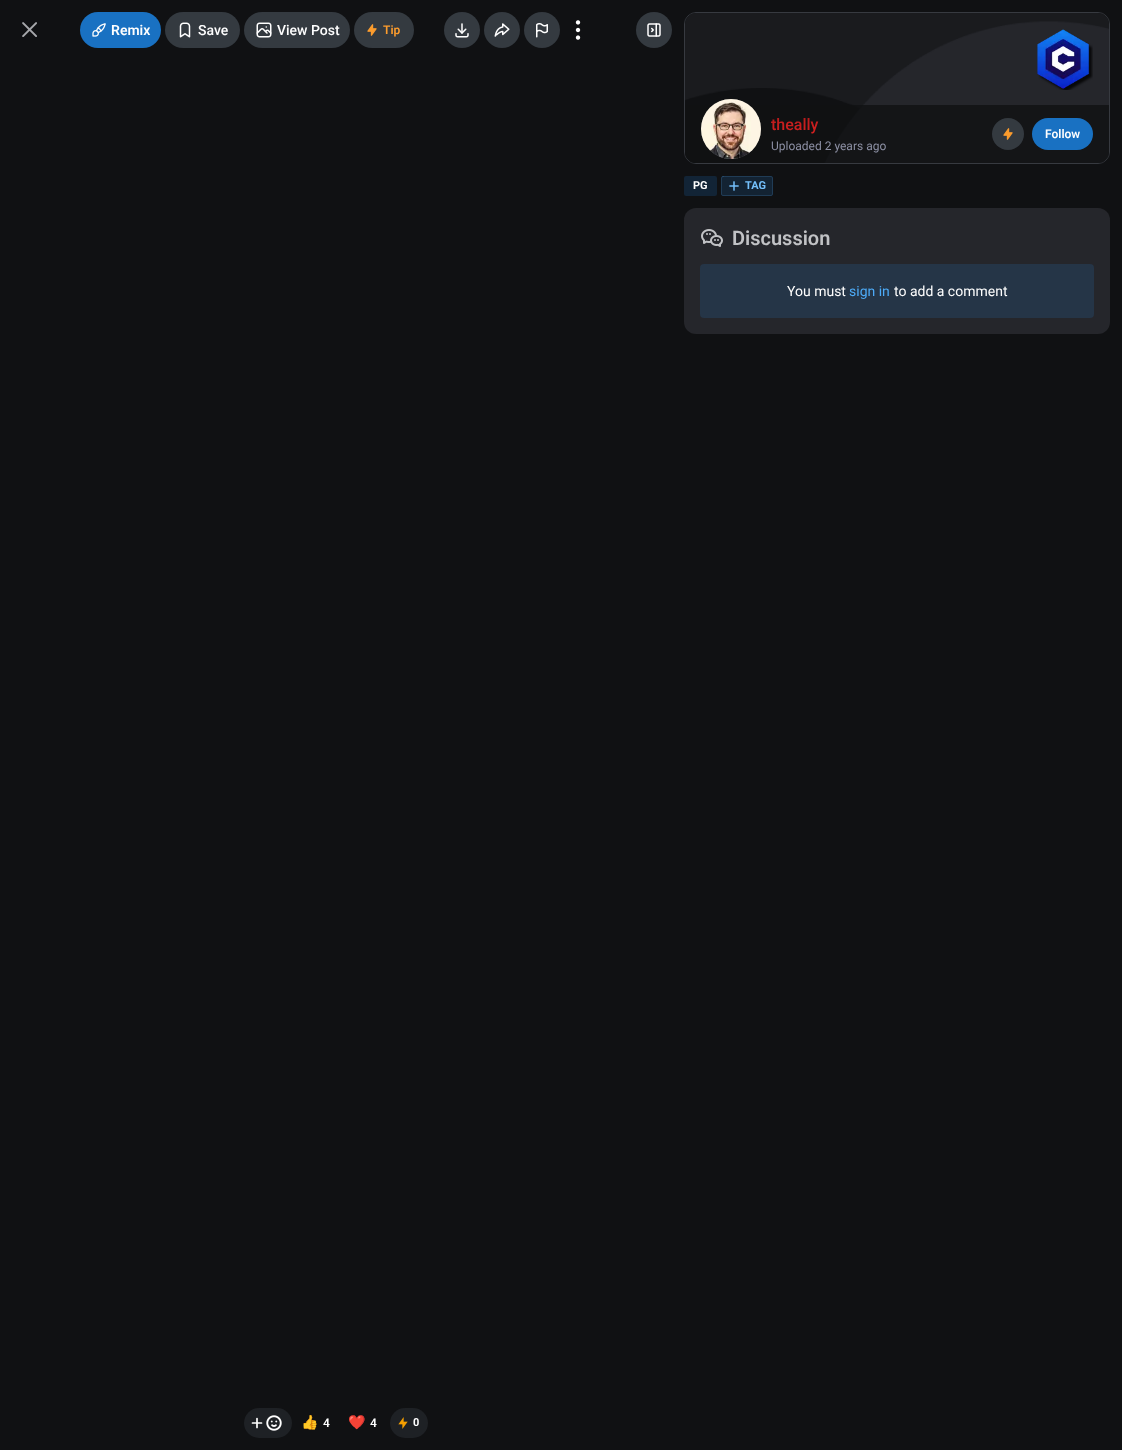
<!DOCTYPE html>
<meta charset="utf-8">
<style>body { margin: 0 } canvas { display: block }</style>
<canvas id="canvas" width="1122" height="1450"></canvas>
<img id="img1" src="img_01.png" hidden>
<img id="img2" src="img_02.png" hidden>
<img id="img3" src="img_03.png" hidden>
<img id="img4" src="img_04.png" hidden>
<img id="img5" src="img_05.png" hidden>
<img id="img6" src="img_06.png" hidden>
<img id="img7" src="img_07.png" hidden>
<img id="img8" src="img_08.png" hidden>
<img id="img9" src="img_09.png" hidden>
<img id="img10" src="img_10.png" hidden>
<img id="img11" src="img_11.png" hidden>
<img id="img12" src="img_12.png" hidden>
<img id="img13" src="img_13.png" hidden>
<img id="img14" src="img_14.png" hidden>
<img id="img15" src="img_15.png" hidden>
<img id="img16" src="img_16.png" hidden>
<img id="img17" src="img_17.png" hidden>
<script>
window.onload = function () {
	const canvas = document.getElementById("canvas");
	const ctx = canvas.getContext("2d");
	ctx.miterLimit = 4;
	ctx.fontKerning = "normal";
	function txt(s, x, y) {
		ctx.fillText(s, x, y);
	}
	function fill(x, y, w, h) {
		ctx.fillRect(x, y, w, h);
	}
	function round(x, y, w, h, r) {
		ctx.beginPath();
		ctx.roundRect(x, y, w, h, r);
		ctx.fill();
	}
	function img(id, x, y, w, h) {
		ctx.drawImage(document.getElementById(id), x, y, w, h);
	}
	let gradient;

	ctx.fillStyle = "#101113";
	fill(0, 0, 1122, 1450);
	img("img1", 22, 22, 15, 15);
	ctx.fillStyle = "#1971C2";
	round(80, 12, 81, 36, 18);
	img("img2", 92, 23, 14, 14);
	ctx.fillStyle = "#343A40";
	round(165, 12, 75, 36, 18);
	img("img3", 179, 22, 12, 16);
	round(244, 12, 106, 36, 18);
	img("img4", 256, 22, 16, 16);
	round(354, 12, 60, 36, 18);
	img("img5", 367, 24, 10, 12);
	ctx.beginPath();
	ctx.arc(462, 30, 18, 0, Math.PI * 2);
	ctx.fill();
	img("img6", 455, 23, 14, 15);
	ctx.beginPath();
	ctx.arc(502, 30, 18, 0, Math.PI * 2);
	ctx.fill();
	img("img7", 494, 23, 16, 14);
	ctx.beginPath();
	ctx.arc(542, 30, 18, 0, Math.PI * 2);
	ctx.fill();
	img("img8", 536, 22, 12, 16);
	img("img9", 575, 20, 6, 20);
	ctx.beginPath();
	ctx.arc(654, 30, 18, 0, Math.PI * 2);
	ctx.fill();
	img("img10", 647, 23, 14, 14);
	ctx.fillStyle = "#1E2125";
	round(244, 1408, 48, 30, 15);
	ctx.beginPath();
	ctx.moveTo(257, 1418.5);
	ctx.lineTo(257, 1427.5);
	ctx.moveTo(252.5, 1423);
	ctx.lineTo(261.5, 1423);
	ctx.strokeStyle = "#FFFFFF";
	ctx.lineWidth = 1.7;
	ctx.lineCap = "round";
	ctx.lineJoin = "round";
	ctx.stroke();
	img("img11", 266, 1415, 16, 16);
	round(390, 1408, 38, 30, 15);
	img("img12", 398, 1417, 10, 12);
	ctx.beginPath();
	ctx.roundRect(684.5, 12.5, 425, 151, 11.5);
	ctx.strokeStyle = "#373A40";
	ctx.lineWidth = 1;
	ctx.lineJoin = "miter";
	ctx.stroke();
	img("img13", 685, 13, 424, 150);
	img("img14", 1037, 29, 56, 61);
	ctx.fillStyle = "rgba(16, 17, 19, 0.8)";
	ctx.beginPath();
	ctx.roundRect(685, 105, 424, 58, [0, 0, 11, 11]);
	ctx.fill();
	ctx.fillStyle = "#5A5B5C";
	ctx.beginPath();
	ctx.arc(731, 129, 30, 0, Math.PI * 2);
	ctx.fill();
	img("img15", 701, 99, 60, 60);
	ctx.fillStyle = "#343A40";
	ctx.beginPath();
	ctx.arc(1008, 134, 16, 0, Math.PI * 2);
	ctx.fill();
	img("img5", 1003, 128, 10, 12);
	ctx.fillStyle = "#1971C2";
	round(1032, 118, 61, 32, 16);
	ctx.fillStyle = "#122436";
	round(684, 176, 33, 20, 2);
	ctx.fillStyle = "#132333";
	round(721, 176, 52, 20, 2);
	ctx.beginPath();
	ctx.roundRect(721.5, 176.5, 51, 19, 1.5);
	ctx.strokeStyle = "rgba(92, 169, 237, 0.19)";
	ctx.stroke();
	img("img16", 729, 181, 10, 10);
	ctx.fillStyle = "#25262B";
	round(684, 208, 426, 126, 12);
	img("img17", 701, 229, 22, 18);
	ctx.fillStyle = "#253547";
	round(700, 264, 394, 54, 4);
	ctx.font = "600 14px Roboto";
	ctx.fillStyle = "#FEFEFE";
	txt("Remix", 111, 35);
	ctx.font = "500 14px Roboto";
	txt("Save", 198, 35);
	txt("View Post", 277, 35);
	ctx.font = "600 12px Roboto";
	ctx.fillStyle = "#FC9C2D";
	txt("Tip", 383, 34);
	ctx.save();
	ctx.beginPath();
	ctx.rect(301, 1409, 29, 28);
	ctx.clip();
	ctx.font = "bold 14px Noto Color Emoji";
	ctx.fillStyle = "#FEFEFE";
	txt("👍", 301, 1427);
	ctx.restore();
	ctx.fillStyle = "#FEFEFE";
	txt("4", 323, 1427);
	ctx.save();
	ctx.beginPath();
	ctx.rect(348, 1409, 29, 28);
	ctx.clip();
	ctx.font = "bold 14px Noto Color Emoji";
	txt("❤️", 348, 1427);
	ctx.restore();
	txt("4", 370, 1427);
	ctx.font = "bold 11px Roboto";
	txt("0", 413, 1426);
	ctx.font = "500 16px Roboto";
	gradient = ctx.createLinearGradient(795, 113, 795, 138);
	gradient.addColorStop(0, "#B31A1A");
	gradient.addColorStop(1, "#DE2222");
	ctx.fillStyle = gradient;
	txt("theally", 771, 130);
	ctx.font = "12px Roboto";
	ctx.fillStyle = "#8C8FA3";
	txt("Uploaded 2 years ago", 771, 150);
	ctx.font = "600 12px Roboto";
	ctx.fillStyle = "#FEFEFE";
	txt("Follow", 1045, 138);
	ctx.font = "bold 11px Roboto";
	txt("PG", 693, 189);
	ctx.fillStyle = "#74C0FC";
	txt("TAG", 745, 189);
	ctx.font = "600 20px Roboto";
	ctx.fillStyle = "#C1C2C5";
	txt("Discussion", 732, 245);
	ctx.font = "14px Roboto";
	ctx.fillStyle = "#FEFEFE";
	txt("You must", 787, 296);
	ctx.fillStyle = "#4DABF7";
	txt("sign in", 849, 296);
	ctx.fillStyle = "#FEFEFE";
	txt("to add a comment", 894, 296);
};
</script>
